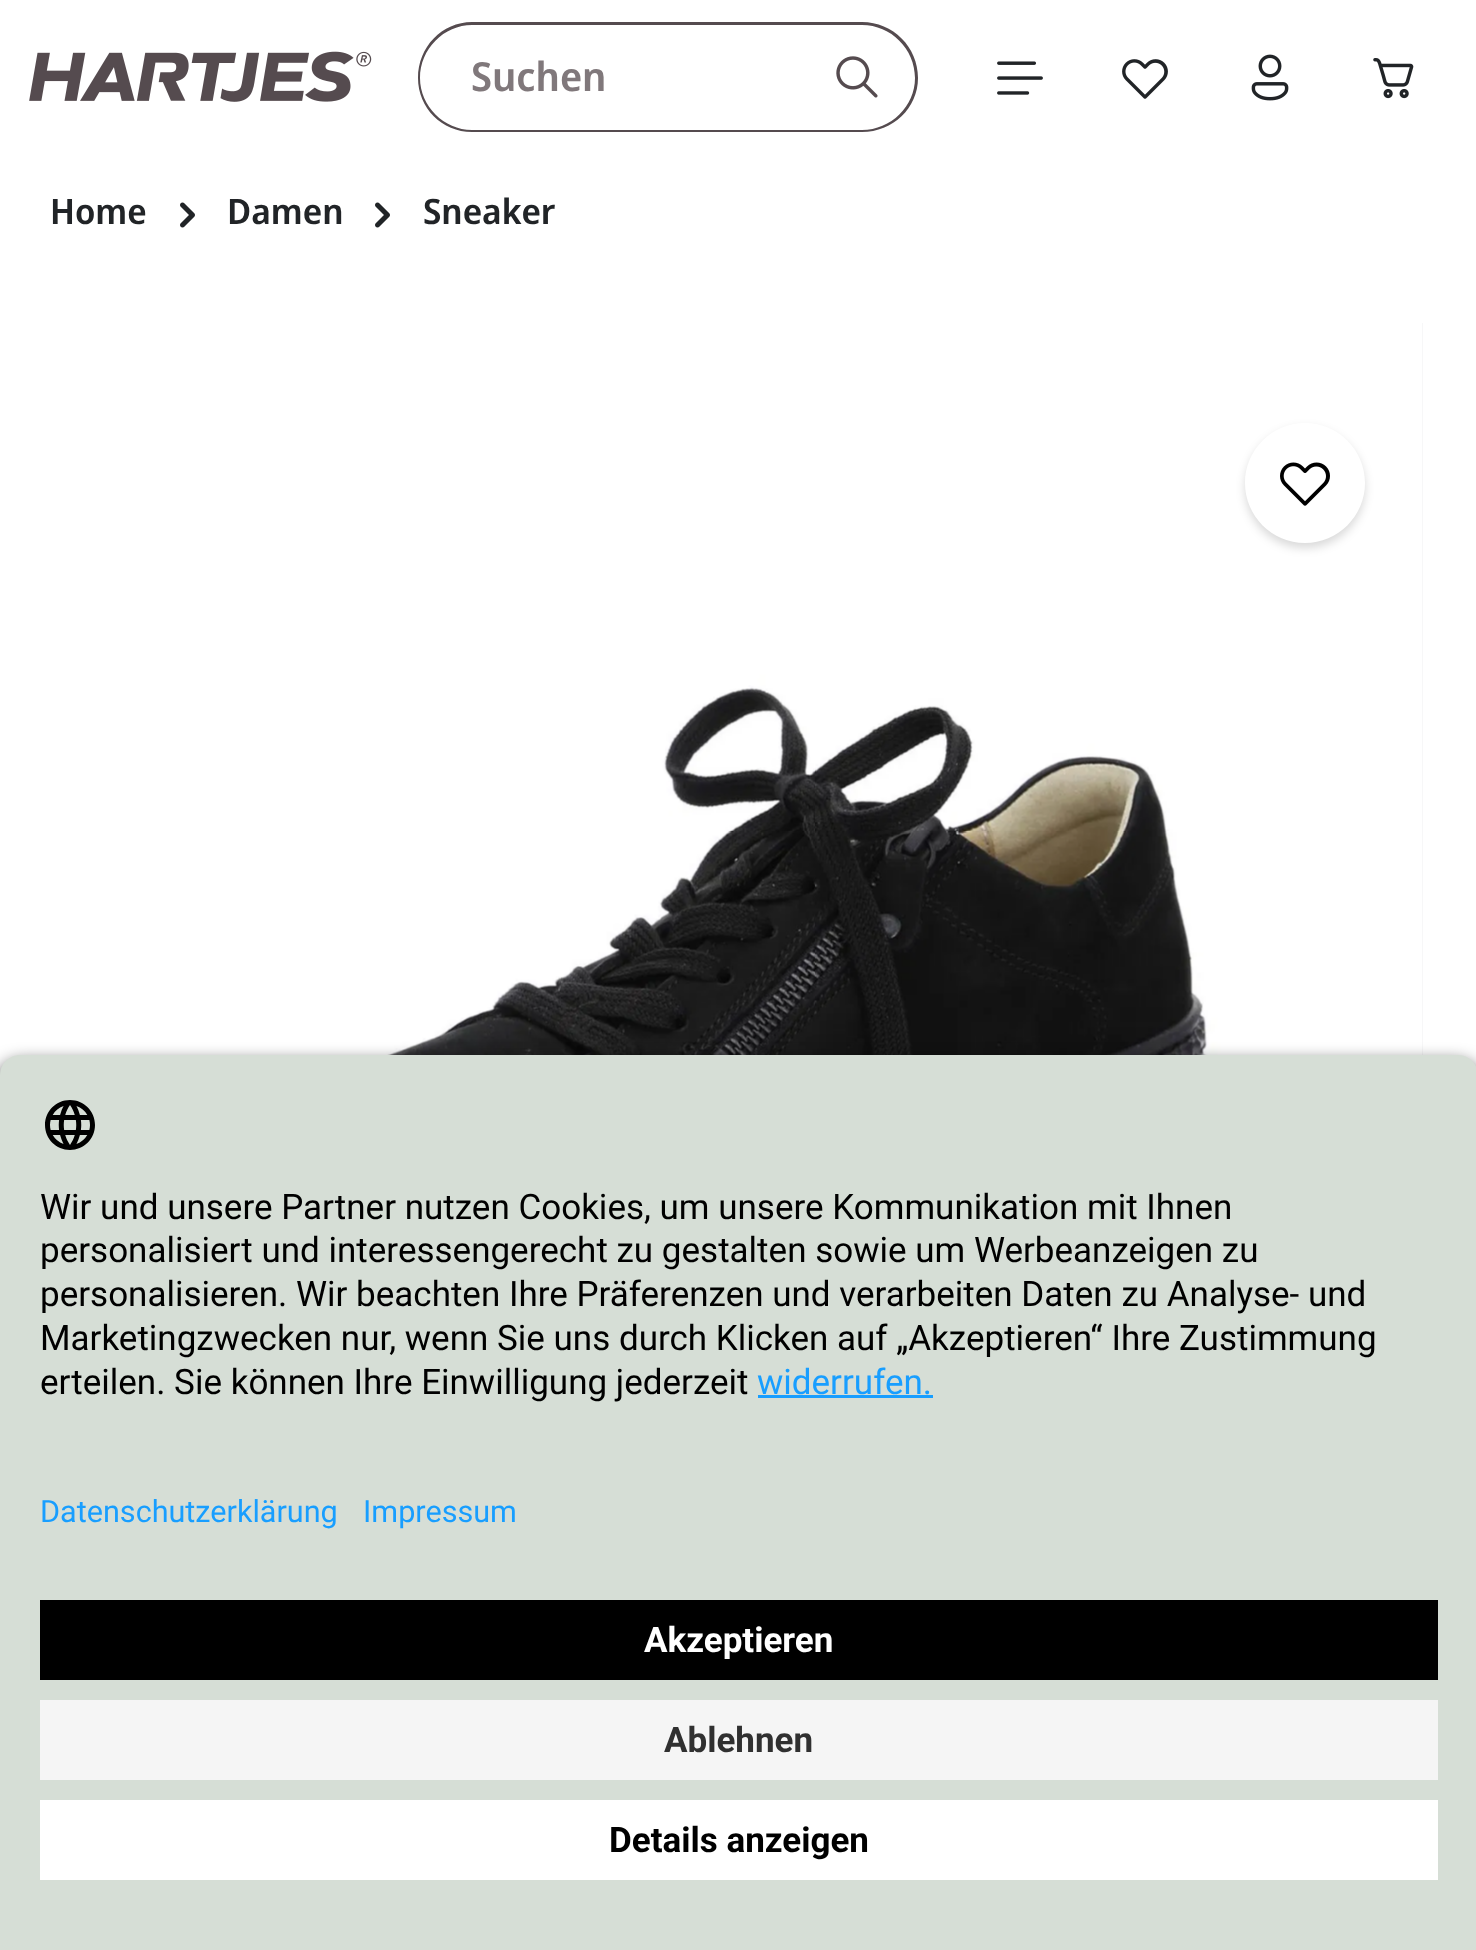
<!DOCTYPE html>
<meta charset="utf-8">
<style>body { margin: 0 } canvas { display: block }</style>
<canvas id="canvas" width="1476" height="1950"></canvas>
<img id="img1" src="img_01.png" hidden>
<img id="img2" src="img_02.png" hidden>
<img id="img3" src="img_03.png" hidden>
<img id="img4" src="img_04.png" hidden>
<img id="img5" src="img_05.png" hidden>
<img id="img6" src="img_06.png" hidden>
<img id="img7" src="img_07.png" hidden>
<img id="img8" src="img_08.png" hidden>
<img id="img9" src="img_09.png" hidden>
<img id="img10" src="img_10.png" hidden>
<script>
window.onload = function () {
	const canvas = document.getElementById("canvas");
	const ctx = canvas.getContext("2d");
	ctx.miterLimit = 4;
	ctx.fontKerning = "normal";
	function txt(s, x, y) {
		ctx.fillText(s, x, y);
	}
	function fill(x, y, w, h) {
		ctx.fillRect(x, y, w, h);
	}
	function img(id, x, y, w, h) {
		ctx.drawImage(document.getElementById(id), x, y, w, h);
	}

	ctx.fillStyle = "#FFFFFF";
	fill(0, 0, 1476, 1950);
	img("img1", 29, 51, 343, 51);
	ctx.fillStyle = "#554B4F";
	ctx.beginPath();
	ctx.moveTo(472, 22);
	ctx.lineTo(802, 22);
	ctx.lineTo(802, 132);
	ctx.lineTo(472, 132);
	ctx.bezierCurveTo(442, 132, 418, 108, 418, 78);
	ctx.bezierCurveTo(418, 47, 442, 22, 472, 22);
	ctx.closePath();
	ctx.moveTo(472, 25);
	ctx.lineTo(802, 25);
	ctx.lineTo(802, 130);
	ctx.lineTo(472, 130);
	ctx.bezierCurveTo(444, 130, 420, 106, 420, 78);
	ctx.bezierCurveTo(420, 49, 444, 25, 472, 25);
	ctx.closePath();
	ctx.fill("evenodd");
	ctx.fillStyle = "#FFFFFF";
	ctx.beginPath();
	ctx.roundRect(800, 23, 118, 110, [0, 55, 55, 0]);
	ctx.fill();
	ctx.fillStyle = "#554B4F";
	ctx.beginPath();
	ctx.moveTo(800, 22);
	ctx.lineTo(862, 22);
	ctx.bezierCurveTo(893, 22, 918, 47, 918, 78);
	ctx.bezierCurveTo(918, 108, 893, 132, 862, 132);
	ctx.lineTo(800, 132);
	ctx.closePath();
	ctx.moveTo(800, 25);
	ctx.lineTo(862, 25);
	ctx.bezierCurveTo(891, 25, 915, 49, 915, 78);
	ctx.bezierCurveTo(915, 106, 891, 130, 862, 130);
	ctx.lineTo(800, 130);
	ctx.closePath();
	ctx.fill("evenodd");
	img("img2", 836, 56, 42, 42);
	img("img3", 997, 61, 46, 34);
	img("img4", 1122, 59, 46, 40);
	img("img5", 1251, 54, 38, 47);
	img("img6", 1373, 58, 41, 41);
	img("img7", 180, 202, 15, 26);
	img("img7", 375, 202, 15, 26);
	ctx.fillStyle = "#F7F7F8";
	fill(1422, 323, 1, 732);
	img("img8", 53, 323, 1369, 732);
	ctx.save();
	ctx.beginPath();
	ctx.moveTo(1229, 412);
	ctx.lineTo(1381, 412);
	ctx.lineTo(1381, 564);
	ctx.lineTo(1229, 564);
	ctx.closePath();
	ctx.moveTo(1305, 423);
	ctx.bezierCurveTo(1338, 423, 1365, 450, 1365, 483);
	ctx.bezierCurveTo(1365, 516, 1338, 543, 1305, 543);
	ctx.bezierCurveTo(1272, 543, 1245, 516, 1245, 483);
	ctx.bezierCurveTo(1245, 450, 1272, 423, 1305, 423);
	ctx.closePath();
	ctx.clip("evenodd");
	ctx.fillStyle = "rgba(0, 0, 0, 0.15)";
	ctx.filter = "blur(5px)";
	ctx.beginPath();
	ctx.roundRect(1245, 428, 120, 120, 60);
	ctx.fill();
	ctx.filter = "none";
	ctx.restore();
	img("img9", 1280, 462, 50, 44);
	ctx.fillStyle = "rgba(0, 0, 0, 0.8)";
	ctx.filter = "blur(9px)";
	ctx.beginPath();
	ctx.roundRect(0, 1063, 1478, 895, 20);
	ctx.fill();
	ctx.filter = "none";
	ctx.fillStyle = "#D6DED6";
	ctx.beginPath();
	ctx.moveTo(20, 1055);
	ctx.lineTo(1458, 1055);
	ctx.bezierCurveTo(1469, 1055, 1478, 1064, 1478, 1075);
	ctx.lineTo(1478, 1455);
	ctx.lineTo(0, 1455);
	ctx.lineTo(0, 1075);
	ctx.bezierCurveTo(0, 1064, 9, 1055, 20, 1055);
	ctx.closePath();
	ctx.fill();
	img("img10", 45, 1100, 50, 50);
	ctx.fillStyle = "#189EFF";
	fill(758, 1395, 175, 3);
	ctx.fillStyle = "#D6DED6";
	fill(0, 1455, 1476, 495);
	ctx.fillStyle = "#000000";
	fill(40, 1600, 1398, 80);
	ctx.fillStyle = "#F5F5F5";
	fill(40, 1700, 1398, 80);
	ctx.fillStyle = "#FFFFFF";
	fill(40, 1800, 1398, 80);
	ctx.font = "600 40px Noto Sans Display";
	ctx.fillStyle = "#80787B";
	txt("Suchen", 471, 91);
	ctx.font = "600 35px Noto Sans Display";
	ctx.fillStyle = "#212427";
	txt("Home", 50, 224);
	txt("Damen", 227, 224);
	txt("Sneaker", 423, 224);
	ctx.font = "35px Roboto";
	ctx.fillStyle = "#000000";
	txt("Wir und unsere Partner nutzen Cookies, um unsere Kommunikation mit Ihnen", 40, 1219);
	txt("personalisiert und interessengerecht zu gestalten sowie um Werbeanzeigen zu", 40, 1262);
	txt("personalisieren. Wir beachten Ihre Präferenzen und verarbeiten Daten zu Analyse- und", 40, 1306);
	txt("Marketingzwecken nur, wenn Sie uns durch Klicken auf „Akzeptieren“ Ihre Zustimmung", 40, 1350);
	txt("erteilen. Sie können Ihre Einwilligung jederzeit", 40, 1394);
	ctx.fillStyle = "#189EFF";
	txt("widerrufen.", 757, 1394);
	ctx.font = "30.6px Roboto";
	txt("Datenschutzerklärung", 40, 1522);
	txt("Impressum", 363, 1522);
	ctx.font = "bold 35px Roboto";
	ctx.fillStyle = "#FFFFFF";
	txt("Akzeptieren", 644, 1652);
	ctx.fillStyle = "#303030";
	txt("Ablehnen", 664, 1752);
	ctx.fillStyle = "#000000";
	txt("Details anzeigen", 609, 1852);
};
</script>
